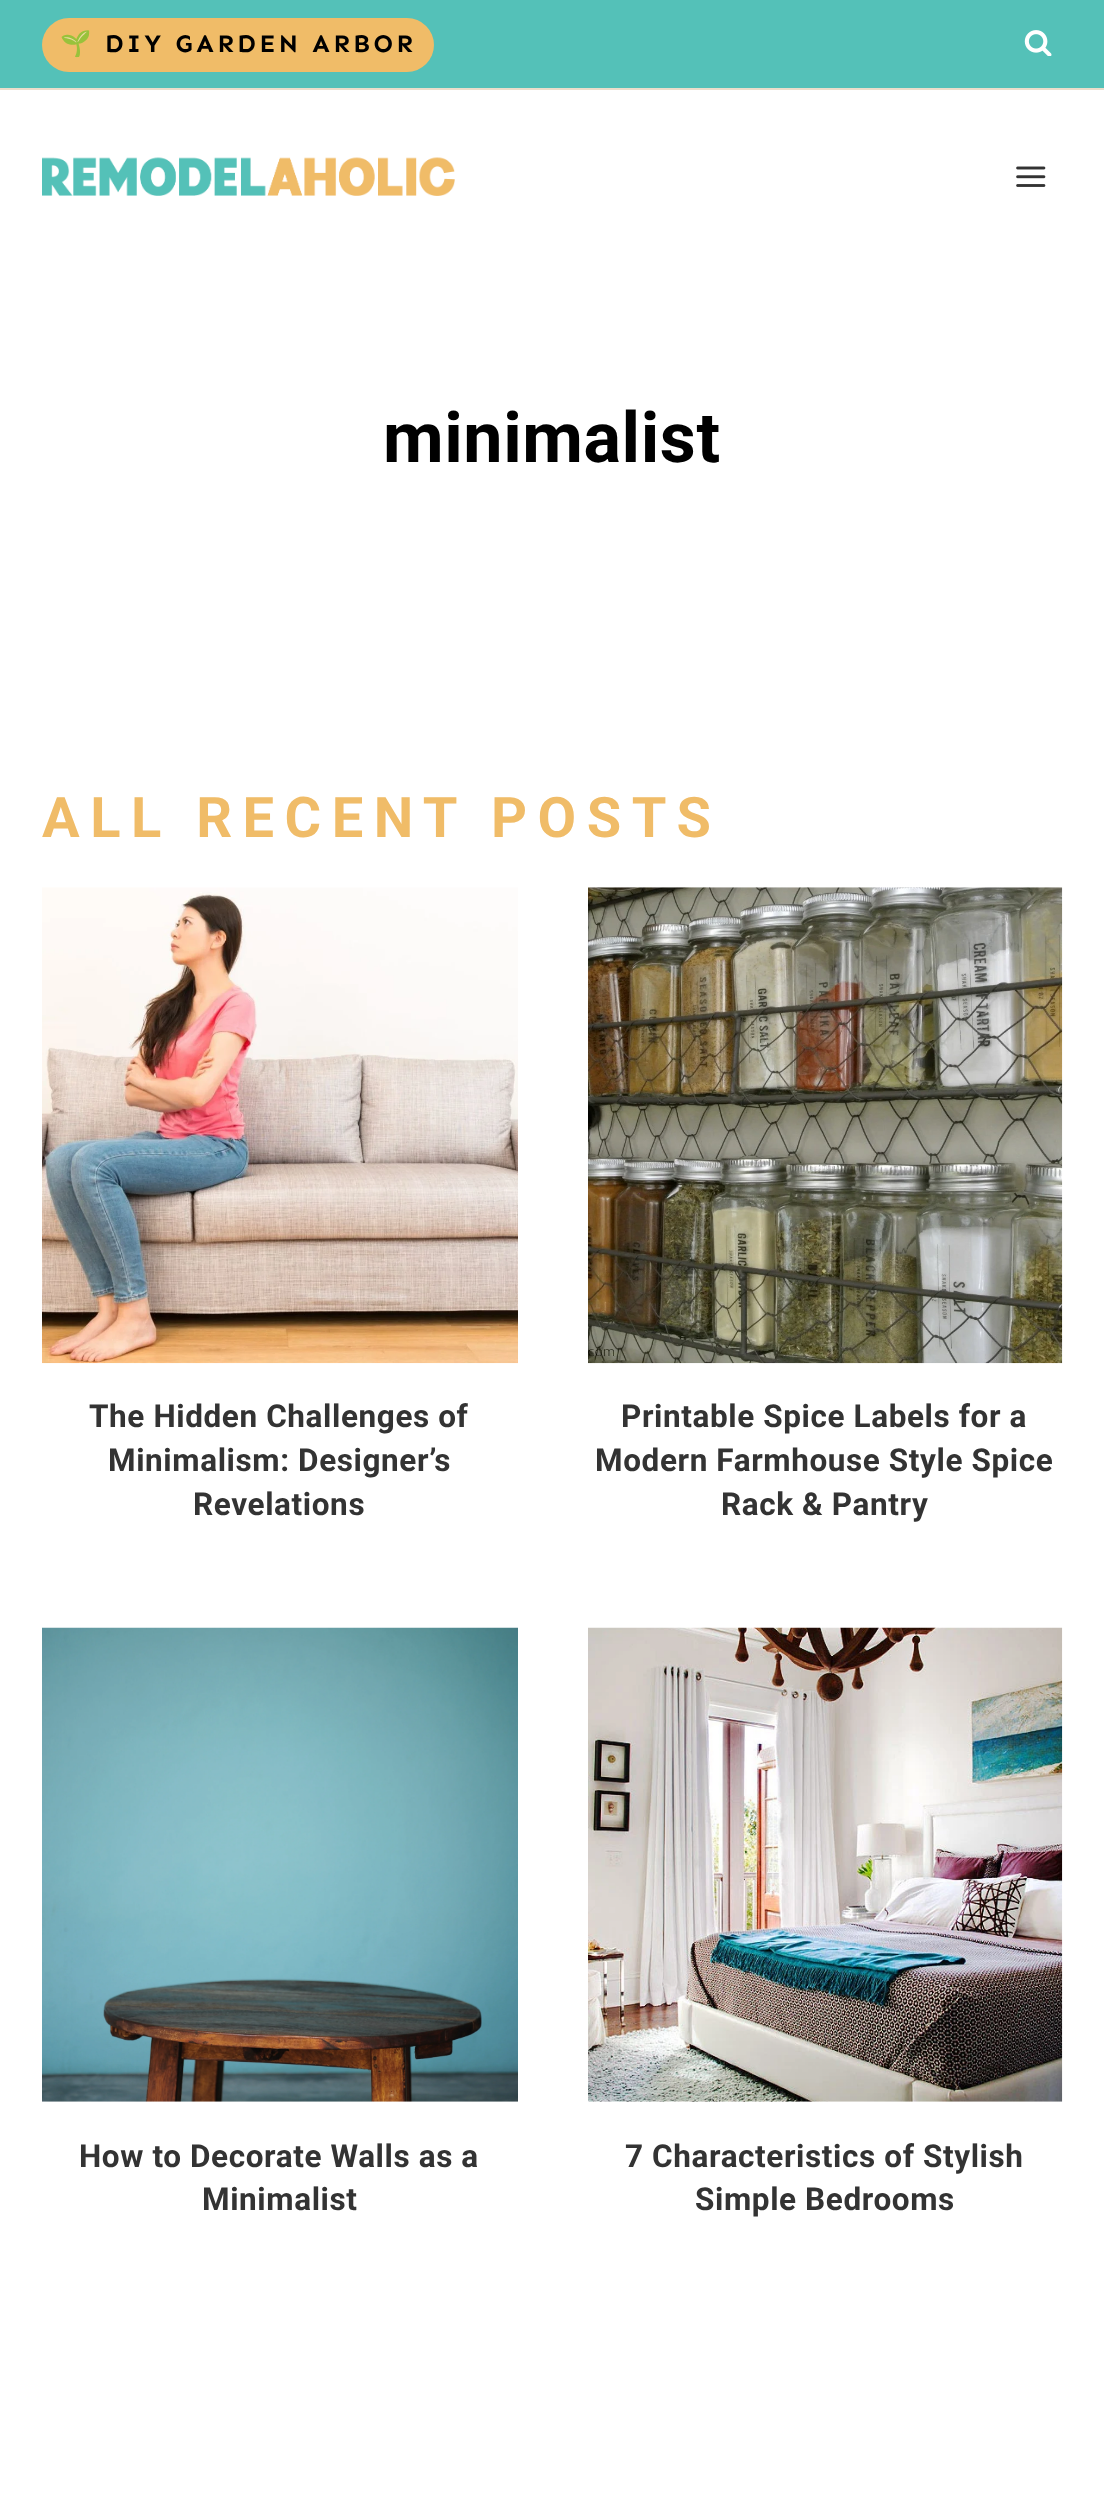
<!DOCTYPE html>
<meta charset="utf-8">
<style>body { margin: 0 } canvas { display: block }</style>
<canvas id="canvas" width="1104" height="2498"></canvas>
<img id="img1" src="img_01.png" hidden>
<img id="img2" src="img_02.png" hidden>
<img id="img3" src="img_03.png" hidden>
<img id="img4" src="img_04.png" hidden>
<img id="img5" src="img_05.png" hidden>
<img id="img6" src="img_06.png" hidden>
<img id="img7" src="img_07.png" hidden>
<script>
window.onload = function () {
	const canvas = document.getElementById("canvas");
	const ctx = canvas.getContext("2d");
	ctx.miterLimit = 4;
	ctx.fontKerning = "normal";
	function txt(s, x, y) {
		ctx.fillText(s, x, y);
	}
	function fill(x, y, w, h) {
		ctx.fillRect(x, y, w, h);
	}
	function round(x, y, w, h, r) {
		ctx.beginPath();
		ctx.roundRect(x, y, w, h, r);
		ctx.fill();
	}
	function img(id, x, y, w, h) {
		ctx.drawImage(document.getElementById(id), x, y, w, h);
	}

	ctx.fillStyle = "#FFFFFF";
	fill(0, 0, 1104, 2498);
	ctx.fillStyle = "#54C1B8";
	fill(0, 0, 1104, 88);
	ctx.fillStyle = "#EBDECB";
	fill(0, 88, 1104, 2);
	ctx.fillStyle = "#F0BC68";
	round(42, 18, 392, 54, 27);
	img("img1", 1024, 30, 28, 26);
	img("img2", 42, 157, 413, 39);
	img("img3", 1016, 166, 30, 21);
	img("img4", 42, 887, 476, 477);
	img("img5", 588, 887, 475, 477);
	img("img6", 42, 1627, 476, 475);
	img("img7", 588, 1627, 475, 475);
	ctx.letterSpacing = "3.5px";
	ctx.font = "bold 25.25px Noto Color Emoji";
	ctx.fillStyle = "#000000";
	txt("🌱", 60, 52);
	ctx.font = "bold 25.25px Sen";
	txt("DIY GARDEN ARBOR", 105, 52);
	ctx.letterSpacing = "0.6px";
	ctx.font = "bold 70px Roboto";
	txt("minimalist", 383, 462);
	ctx.letterSpacing = "10.5px";
	ctx.font = "bold 56px Roboto";
	ctx.fillStyle = "#F0BC68";
	txt("ALL RECENT POSTS", 42, 837);
	ctx.letterSpacing = "0.6px";
	ctx.font = "bold 31.5px Roboto";
	ctx.fillStyle = "#333333";
	txt("The Hidden Challenges of", 89, 1427);
	txt("Minimalism: Designer’s", 108, 1471);
	txt("Revelations", 193, 1515);
	txt("Printable Spice Labels for a", 621, 1427);
	txt("Modern Farmhouse Style Spice", 595, 1471);
	txt("Rack & Pantry", 721, 1515);
	txt("How to Decorate Walls as a", 79, 2167);
	txt("Minimalist", 202, 2210);
	txt("7 Characteristics of Stylish", 625, 2167);
	txt("Simple Bedrooms", 695, 2210);
};
</script>
